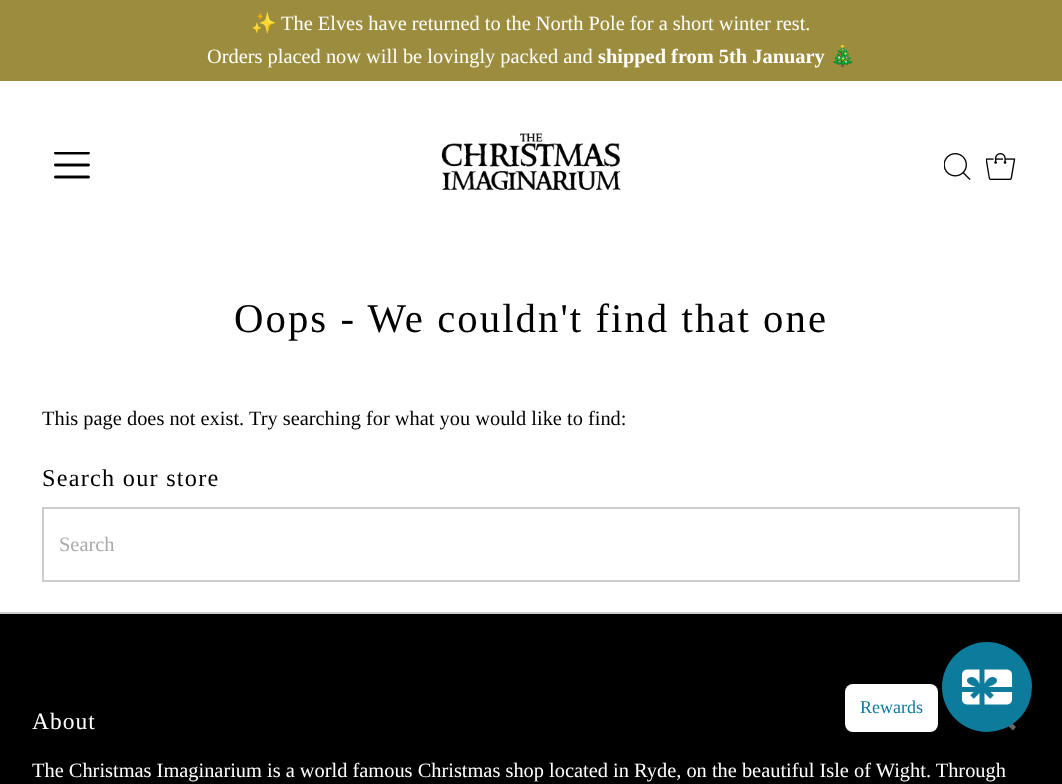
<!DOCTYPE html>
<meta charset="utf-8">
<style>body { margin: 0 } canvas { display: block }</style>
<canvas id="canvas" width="1062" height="784"></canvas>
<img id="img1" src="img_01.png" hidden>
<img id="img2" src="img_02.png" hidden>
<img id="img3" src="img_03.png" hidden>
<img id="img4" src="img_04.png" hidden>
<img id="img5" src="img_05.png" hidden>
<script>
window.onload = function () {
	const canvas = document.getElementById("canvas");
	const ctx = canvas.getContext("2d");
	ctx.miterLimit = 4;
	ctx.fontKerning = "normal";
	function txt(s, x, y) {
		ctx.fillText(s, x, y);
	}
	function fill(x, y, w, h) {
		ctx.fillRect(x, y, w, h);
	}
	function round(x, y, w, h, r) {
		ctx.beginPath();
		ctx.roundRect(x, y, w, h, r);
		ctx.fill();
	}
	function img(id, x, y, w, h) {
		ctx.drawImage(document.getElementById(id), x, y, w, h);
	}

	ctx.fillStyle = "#FFFFFF";
	fill(0, 0, 1062, 784);
	ctx.fillStyle = "#9C8D3E";
	fill(0, 0, 1062, 81);
	img("img1", 54, 152, 36, 27);
	img("img2", 441, 133, 180, 58);
	img("img3", 944, 153, 27, 27);
	img("img4", 986, 153, 30, 27);
	ctx.strokeStyle = "#CCCCCC";
	ctx.lineWidth = 2;
	ctx.strokeRect(43, 508, 976, 73);
	ctx.fillStyle = "#000000";
	fill(0, 614, 1062, 170);
	ctx.fillStyle = "#CCCCCC";
	fill(0, 612, 1062, 2);
	ctx.fillStyle = "#666666";
	ctx.beginPath();
	ctx.moveTo(1001.5, 712.5);
	ctx.lineTo(987, 727);
	ctx.lineTo(990.5, 730.5);
	ctx.lineTo(1001.5, 719.5);
	ctx.lineTo(1013, 730.5);
	ctx.lineTo(1016, 727);
	ctx.closePath();
	ctx.fill();
	ctx.fillStyle = "#FFFFFF";
	round(845, 684, 93, 48, 8);
	ctx.fillStyle = "#0C7B9C";
	ctx.beginPath();
	ctx.arc(987, 687, 45, 0, Math.PI * 2);
	ctx.fill();
	img("img5", 962, 669, 50, 36);
	ctx.font = "20.4px Noto Color Emoji";
	ctx.fillStyle = "#FFFFFF";
	txt("✨", 251, 30);
	ctx.font = "20.4px Liberation Serif";
	txt("The Elves have returned to the North Pole for a short winter rest.", 281, 30);
	txt("Orders placed now will be lovingly packed and", 207, 63);
	ctx.font = "bold 20.4px Liberation Serif";
	txt("shipped from 5th January", 598, 63);
	ctx.font = "20.4px Noto Color Emoji";
	txt("🎄", 830, 63);
	ctx.letterSpacing = "2.05px";
	ctx.font = "40.75px Liberation Serif";
	ctx.fillStyle = "#000000";
	txt("Oops - We couldn't find that one", 234, 332);
	ctx.letterSpacing = "0px";
	ctx.font = "20.4px Liberation Serif";
	txt("This page does not exist. Try searching for what you would like to find:", 42, 425);
	ctx.letterSpacing = "1.25px";
	ctx.font = "24.25px Liberation Serif";
	txt("Search our store", 42, 486);
	ctx.letterSpacing = "0px";
	ctx.font = "20.4px Liberation Serif";
	ctx.fillStyle = "#AAAAAA";
	txt("Search", 59, 551);
	ctx.letterSpacing = "1px";
	ctx.font = "23.5px Liberation Serif";
	ctx.fillStyle = "#FFFFFF";
	txt("About", 32, 729);
	ctx.letterSpacing = "0px";
	ctx.font = "20.4px Liberation Serif";
	txt("The Christmas Imaginarium is a world famous Christmas shop located in Ryde, on the beautiful Isle of Wight. Through", 32, 777);
	ctx.font = "18px Liberation Serif";
	ctx.fillStyle = "#0C7B9C";
	txt("Rewards", 860, 713);
};
</script>
